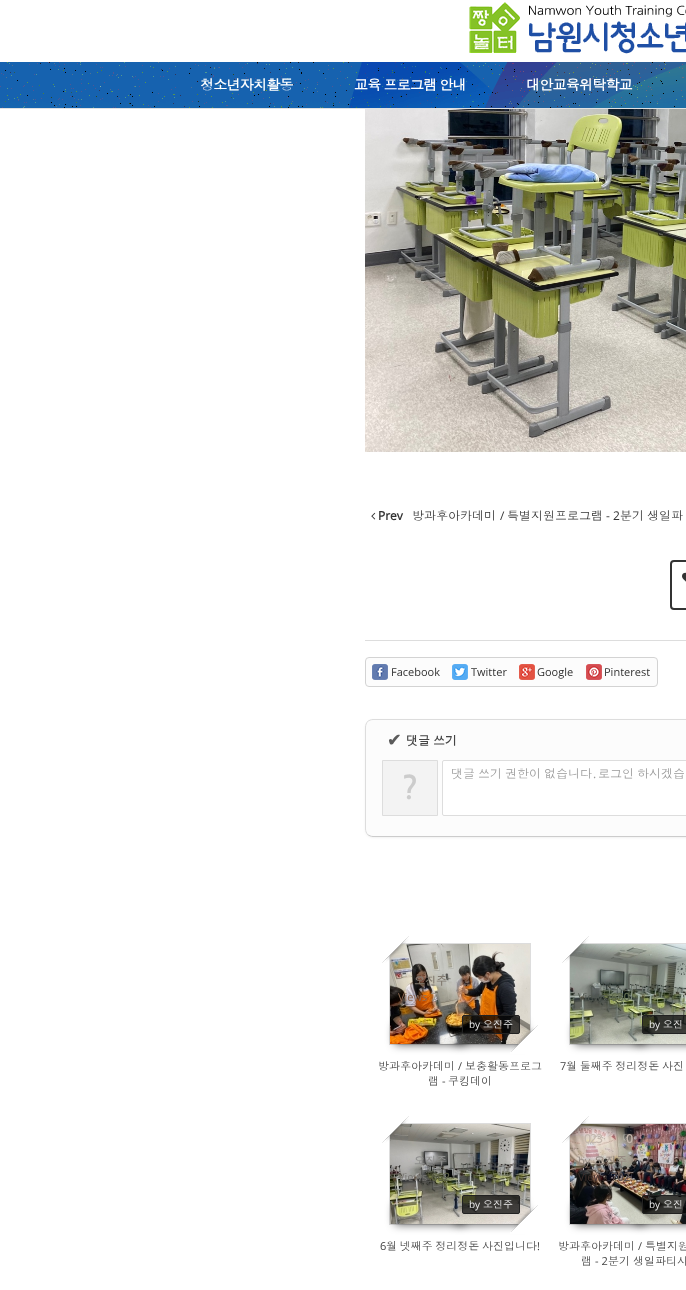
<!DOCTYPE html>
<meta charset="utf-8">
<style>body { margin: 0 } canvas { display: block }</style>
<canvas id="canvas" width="686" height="1290"></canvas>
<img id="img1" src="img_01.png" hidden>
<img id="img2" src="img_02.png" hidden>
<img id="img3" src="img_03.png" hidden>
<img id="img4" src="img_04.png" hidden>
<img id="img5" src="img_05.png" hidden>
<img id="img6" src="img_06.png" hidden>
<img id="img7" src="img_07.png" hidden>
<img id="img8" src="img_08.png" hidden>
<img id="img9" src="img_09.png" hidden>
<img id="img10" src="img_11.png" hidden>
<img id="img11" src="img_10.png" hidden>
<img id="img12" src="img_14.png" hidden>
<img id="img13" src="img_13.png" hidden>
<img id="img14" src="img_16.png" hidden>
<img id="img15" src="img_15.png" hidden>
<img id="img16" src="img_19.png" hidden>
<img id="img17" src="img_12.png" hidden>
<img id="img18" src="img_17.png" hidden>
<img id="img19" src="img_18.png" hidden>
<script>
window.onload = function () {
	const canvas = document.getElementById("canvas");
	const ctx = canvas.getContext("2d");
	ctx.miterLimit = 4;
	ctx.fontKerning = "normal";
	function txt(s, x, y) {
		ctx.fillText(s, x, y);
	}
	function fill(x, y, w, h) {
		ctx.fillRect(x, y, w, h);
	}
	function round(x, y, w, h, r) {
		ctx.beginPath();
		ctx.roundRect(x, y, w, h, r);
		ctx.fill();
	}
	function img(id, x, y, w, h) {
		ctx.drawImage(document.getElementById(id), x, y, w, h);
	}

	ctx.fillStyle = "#FFFFFF";
	fill(0, 0, 686, 1290);
	ctx.fillStyle = "#E1E1E1";
	fill(0, 108, 686, 1);
	img("img1", 469, 2, 217, 52);
	img("img2", 0, 62, 686, 46);
	img("img3", 365, 109, 321, 343);
	img("img4", 371, 512, 5, 8);
	ctx.beginPath();
	ctx.roundRect(671, 561, 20, 48, 3);
	ctx.strokeStyle = "#333333";
	ctx.lineWidth = 2;
	ctx.stroke();
	img("img5", 682, 572, 4, 10);
	ctx.fillStyle = "#DDDDDD";
	fill(365, 640, 321, 1);
	ctx.fillStyle = "#FCFCFC";
	ctx.beginPath();
	ctx.roundRect(365.5, 657.5, 292, 29, 3.5);
	ctx.fill();
	ctx.strokeStyle = "#D3D3D3";
	ctx.lineWidth = 1;
	ctx.stroke();
	img("img6", 372, 664, 16, 16);
	img("img7", 452, 664, 16, 16);
	img("img8", 519, 664, 16, 16);
	img("img9", 586, 664, 16, 16);
	ctx.fillStyle = "rgba(0, 0, 0, 0.1)";
	ctx.filter = "blur(1.5px)";
	ctx.beginPath();
	ctx.roundRect(366, 721, 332, 116, 7);
	ctx.fill();
	ctx.filter = "none";
	ctx.fillStyle = "#FCFCFC";
	round(365, 719, 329, 118, 8);
	ctx.beginPath();
	ctx.moveTo(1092.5, 834.5);
	ctx.bezierCurveTo(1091, 835.5, 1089, 836.5, 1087, 836.5);
	ctx.lineTo(373, 836.5);
	ctx.bezierCurveTo(371, 836.5, 369, 835.5, 367.5, 834.5);
	ctx.strokeStyle = "#CCCCCC";
	ctx.stroke();
	ctx.beginPath();
	ctx.moveTo(367.5, 834.5);
	ctx.bezierCurveTo(366.5, 833, 365.5, 831, 365.5, 829);
	ctx.lineTo(365.5, 727);
	ctx.bezierCurveTo(365.5, 725, 366.5, 723, 367.5, 721.5);
	ctx.bezierCurveTo(369, 720.5, 371, 719.5, 373, 719.5);
	ctx.lineTo(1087, 719.5);
	ctx.bezierCurveTo(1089, 719.5, 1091, 720.5, 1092.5, 721.5);
	ctx.bezierCurveTo(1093.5, 723, 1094.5, 725, 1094.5, 727);
	ctx.lineTo(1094.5, 829);
	ctx.bezierCurveTo(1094.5, 831, 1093.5, 833, 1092.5, 834.5);
	ctx.strokeStyle = "#DDDDDD";
	ctx.stroke();
	ctx.fillStyle = "#F3F3F3";
	ctx.beginPath();
	ctx.rect(382.5, 760.5, 55, 55);
	ctx.fill();
	ctx.stroke();
	ctx.fillStyle = "#FFFFFF";
	ctx.beginPath();
	ctx.roundRect(442.5, 760.5, 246, 55, 1.5);
	ctx.fill();
	ctx.stroke();
	ctx.strokeRect(389.5, 943.5, 141, 101);
	ctx.fillStyle = "rgba(0, 0, 0, 0.7)";
	ctx.filter = "blur(5px)";
	ctx.beginPath();
	ctx.rect(395, 1024, 70, 20);
	ctx.fill();
	ctx.filter = "none";
	ctx.filter = "blur(5px)";
	ctx.beginPath();
	ctx.rect(455, 1024, 70, 20);
	ctx.fill();
	ctx.filter = "none";
	img("img10", 390, 944, 140, 100);
	img("img11", 382, 936, 27, 27);
	ctx.beginPath();
	ctx.roundRect(462.5, 1015.5, 57, 18, 1.5);
	ctx.fill();
	ctx.strokeStyle = "#222222";
	ctx.stroke();
	ctx.strokeStyle = "#DDDDDD";
	ctx.strokeRect(569.5, 943.5, 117, 101);
	ctx.filter = "blur(5px)";
	ctx.beginPath();
	ctx.rect(575, 1024, 70, 20);
	ctx.fill();
	ctx.filter = "none";
	ctx.filter = "blur(5px)";
	ctx.beginPath();
	ctx.rect(635, 1024, 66, 20);
	ctx.fill();
	ctx.filter = "none";
	img("img12", 570, 944, 116, 100);
	img("img13", 562, 936, 27, 27);
	ctx.beginPath();
	ctx.roundRect(642.5, 1015.5, 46, 18, 1.5);
	ctx.fill();
	ctx.strokeStyle = "#222222";
	ctx.stroke();
	ctx.strokeStyle = "#DDDDDD";
	ctx.strokeRect(389.5, 1123.5, 141, 101);
	ctx.filter = "blur(5px)";
	ctx.beginPath();
	ctx.rect(395, 1204, 70, 20);
	ctx.fill();
	ctx.filter = "none";
	ctx.filter = "blur(5px)";
	ctx.beginPath();
	ctx.rect(455, 1204, 70, 20);
	ctx.fill();
	ctx.filter = "none";
	img("img14", 390, 1124, 140, 100);
	img("img15", 382, 1116, 27, 27);
	ctx.beginPath();
	ctx.roundRect(462.5, 1195.5, 57, 18, 1.5);
	ctx.fill();
	ctx.strokeStyle = "#222222";
	ctx.stroke();
	ctx.strokeStyle = "#DDDDDD";
	ctx.strokeRect(569.5, 1123.5, 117, 101);
	ctx.filter = "blur(5px)";
	ctx.beginPath();
	ctx.rect(575, 1204, 70, 20);
	ctx.fill();
	ctx.filter = "none";
	ctx.filter = "blur(5px)";
	ctx.beginPath();
	ctx.rect(635, 1204, 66, 20);
	ctx.fill();
	ctx.filter = "none";
	img("img16", 570, 1124, 116, 100);
	ctx.beginPath();
	ctx.roundRect(642.5, 1195.5, 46, 18, 1.5);
	ctx.fill();
	ctx.strokeStyle = "#222222";
	ctx.stroke();
	ctx.letterSpacing = "-0.75px";
	ctx.font = "bold 14px Dotum";
	ctx.fillStyle = "#FFFFFF";
	txt("청소년자치활동", 200, 90);
	ctx.wordSpacing = "-1px";
	txt("교육 프로그램 안내", 354, 90);
	ctx.wordSpacing = "0px";
	txt("대안교육위탁학교", 526, 90);
	ctx.letterSpacing = "0px";
	ctx.font = "bold 12px Open Sans";
	ctx.fillStyle = "#333333";
	txt("Prev", 378, 520);
	ctx.font = "12px Dotum";
	txt("방과후아카데미", 412, 520);
	ctx.font = "12px Open Sans";
	txt("/", 500, 520);
	ctx.font = "12px Dotum";
	txt("특별지원프로그램", 507, 520);
	ctx.font = "12px Open Sans";
	txt("- 2", 606, 520);
	ctx.font = "12px Dotum";
	txt("분기", 620, 520);
	txt("생일파", 647, 520);
	ctx.font = "11px Open Sans";
	txt("Facebook", 391, 676);
	txt("Twitter", 471, 676);
	txt("Google", 537, 676);
	txt("Pinterest", 604, 676);
	ctx.font = "bold 17px DejaVu Sans";
	ctx.fillStyle = "#5B5B5B";
	txt("✔", 387, 746);
	ctx.wordSpacing = "-1px";
	ctx.font = "bold 12px Dotum";
	ctx.fillStyle = "#444444";
	txt("댓글 쓰기", 406, 745);
	ctx.wordSpacing = "0px";
	ctx.font = "bold 32px NanumGothic";
	ctx.fillStyle = "#CCCCCC";
	txt("?", 401, 799);
	ctx.wordSpacing = "-1px";
	ctx.font = "12px Dotum";
	ctx.fillStyle = "#999999";
	txt("댓글 쓰기 권한이 없습니다", 451, 778);
	ctx.wordSpacing = "0px";
	ctx.font = "12px Open Sans";
	txt(".", 593, 778);
	ctx.wordSpacing = "-1px";
	ctx.font = "12px Dotum";
	txt("로그인 하시겠습", 598, 778);
	ctx.wordSpacing = "0px";
	ctx.font = "bold 11px Dotum";
	ctx.fillStyle = "#81796F";
	txt("오진주", 414, 985);
	ctx.font = "11px Open Sans";
	ctx.fillStyle = "#8E6A54";
	txt("Views", 398, 1001);
	ctx.font = "bold 11px Open Sans";
	ctx.fillStyle = "#A19B8F";
	txt("7", 431, 1001);
	ctx.font = "10px Open Sans";
	ctx.fillStyle = "#EEEEEE";
	txt("by", 469, 1028);
	ctx.font = "10px Dotum";
	txt("오진주", 483, 1028);
	img("img17", 510, 1025, 28, 29);
	ctx.font = "11px Dotum";
	ctx.fillStyle = "#444444";
	txt("방과후아카데미", 378, 1070);
	ctx.font = "11px Open Sans";
	txt("/", 458, 1070);
	ctx.font = "11px Dotum";
	txt("보충활동프로그", 465, 1070);
	txt("램", 428, 1085);
	ctx.font = "11px Open Sans";
	txt("-", 442, 1085);
	ctx.font = "11px Dotum";
	txt("쿠킹데이", 448, 1085);
	ctx.font = "11px Open Sans";
	ctx.fillStyle = "#525851";
	txt("Views", 578, 1001);
	ctx.font = "bold 11px Open Sans";
	ctx.fillStyle = "#5F6A4F";
	txt("630", 611, 1001);
	ctx.font = "10px Open Sans";
	ctx.fillStyle = "#EEEEEE";
	txt("by", 649, 1028);
	ctx.font = "10px Dotum";
	txt("오진", 663, 1028);
	ctx.font = "11px Open Sans";
	ctx.fillStyle = "#444444";
	txt("7", 560, 1070);
	ctx.wordSpacing = "-1px";
	ctx.font = "11px Dotum";
	txt("월 둘째주 정리정돈 사진", 566, 1070);
	ctx.wordSpacing = "0px";
	ctx.font = "bold 11px Dotum";
	ctx.fillStyle = "#8F8F8E";
	txt("오진주", 414, 1165);
	ctx.font = "11px Open Sans";
	ctx.fillStyle = "#787773";
	txt("Views", 398, 1181);
	ctx.font = "bold 11px Open Sans";
	ctx.fillStyle = "#5B5F44";
	txt("662", 431, 1181);
	ctx.font = "10px Open Sans";
	ctx.fillStyle = "#EEEEEE";
	txt("by", 469, 1208);
	ctx.font = "10px Dotum";
	txt("오진주", 483, 1208);
	img("img18", 510, 1205, 28, 29);
	ctx.font = "11px Open Sans";
	ctx.fillStyle = "#444444";
	txt("6", 380, 1250);
	ctx.wordSpacing = "-1px";
	ctx.font = "11px Dotum";
	txt("월 넷째주 정리정돈 사진입니다", 386, 1250);
	ctx.wordSpacing = "0px";
	ctx.font = "11px Open Sans";
	txt("!", 537, 1250);
	ctx.letterSpacing = "-1px";
	ctx.font = "bold 12px Open Sans";
	ctx.fillStyle = "#C3B6AC";
	txt("023", 584, 1143);
	img("img19", 562, 1116, 27, 27);
	txt("0", 626, 1143);
	ctx.letterSpacing = "0px";
	ctx.font = "11px Open Sans";
	ctx.fillStyle = "#968A82";
	txt("by", 578, 1165);
	ctx.font = "bold 11px Dotum";
	txt("오진주", 594, 1165);
	ctx.font = "11px Open Sans";
	ctx.fillStyle = "#3D2F2B";
	txt("Views", 578, 1181);
	ctx.font = "bold 11px Open Sans";
	ctx.fillStyle = "#5F534F";
	txt("702", 611, 1181);
	ctx.font = "10px Open Sans";
	ctx.fillStyle = "#EEEEEE";
	txt("by", 649, 1208);
	ctx.font = "10px Dotum";
	txt("오진", 663, 1208);
	ctx.font = "11px Dotum";
	ctx.fillStyle = "#444444";
	txt("방과후아카데미", 558, 1250);
	ctx.font = "11px Open Sans";
	txt("/", 638, 1250);
	ctx.font = "11px Dotum";
	txt("특별지원", 645, 1250);
	txt("램", 581, 1265);
	ctx.font = "11px Open Sans";
	txt("- 2", 595, 1265);
	ctx.font = "11px Dotum";
	txt("분기", 608, 1265);
	txt("생일파티사", 633, 1265);
};
</script>
